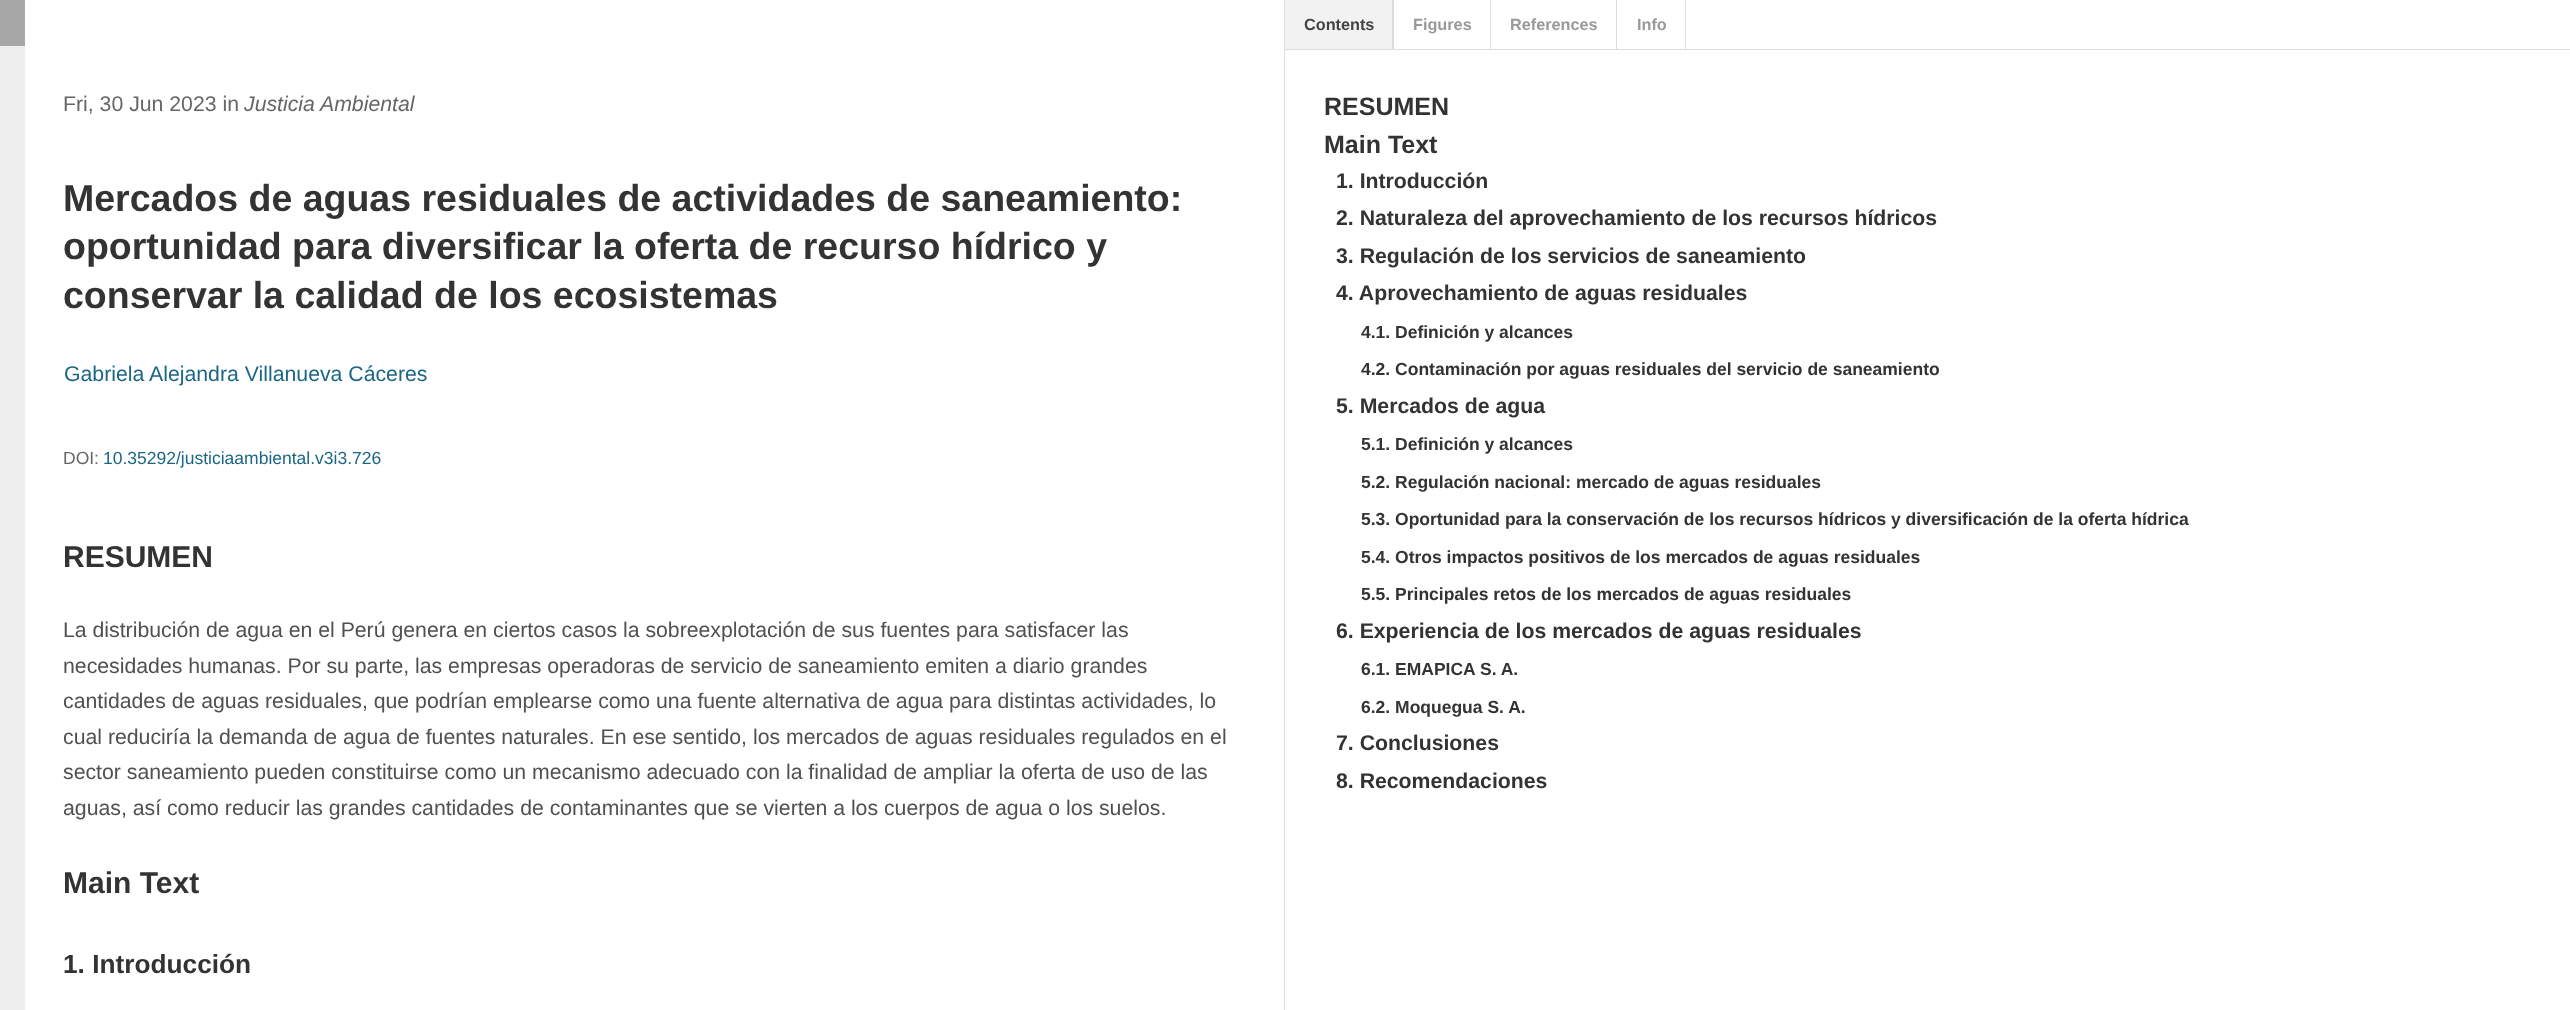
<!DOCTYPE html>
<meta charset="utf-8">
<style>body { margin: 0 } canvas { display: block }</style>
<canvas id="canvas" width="2570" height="1010"></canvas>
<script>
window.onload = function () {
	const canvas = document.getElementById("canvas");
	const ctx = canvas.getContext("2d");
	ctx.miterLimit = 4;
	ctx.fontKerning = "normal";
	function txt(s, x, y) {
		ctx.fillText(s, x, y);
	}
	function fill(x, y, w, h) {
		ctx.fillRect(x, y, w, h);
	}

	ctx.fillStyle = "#FFFFFF";
	fill(0, 0, 2570, 1010);
	ctx.fillStyle = "#DDDDDD";
	fill(1284, 0, 1, 1010);
	ctx.fillStyle = "#EEEEEE";
	fill(0, 46, 25, 964);
	ctx.fillStyle = "#A7A7A7";
	fill(0, 0, 25, 46);
	ctx.fillStyle = "#DDDDDD";
	fill(1285, 49, 1285, 1);
	ctx.fillStyle = "#F2F2F2";
	fill(1285, 0, 107, 49);
	ctx.save();
	ctx.beginPath();
	ctx.rect(1285, 0, 1285, 49);
	ctx.clip();
	ctx.fillStyle = "#DDDDDD";
	ctx.beginPath();
	ctx.moveTo(1394, 0);
	ctx.lineTo(1394, 54);
	ctx.lineTo(1392, 50);
	ctx.lineTo(1392, 0);
	ctx.closePath();
	ctx.fill();
	ctx.restore();
	ctx.fillStyle = "#DDDDDD";
	fill(1490, 0, 1, 49);
	fill(1616, 0, 1, 49);
	fill(1685, 0, 1, 49);
	ctx.font = "21.25px Liberation Sans";
	ctx.fillStyle = "#666666";
	txt("Fri, 30 Jun 2023 in", 63, 111);
	ctx.font = "italic 21.25px Liberation Sans";
	txt("Justicia Ambiental", 244, 111);
	ctx.font = "bold 37.5px Liberation Sans";
	ctx.fillStyle = "#333333";
	txt("Mercados de aguas residuales de actividades de saneamiento:", 63, 211);
	txt("oportunidad para diversificar la oferta de recurso hídrico y", 63, 259);
	txt("conservar la calidad de los ecosistemas", 63, 308);
	ctx.font = "21.25px Liberation Sans";
	ctx.fillStyle = "#1B6685";
	txt("Gabriela Alejandra Villanueva Cáceres", 64, 381);
	ctx.font = "17.5px Liberation Sans";
	ctx.fillStyle = "#666666";
	txt("DOI:", 63, 464);
	ctx.fillStyle = "#1B6685";
	txt("10.35292/justiciaambiental.v3i3.726", 103, 464);
	ctx.font = "bold 30px Liberation Sans";
	ctx.fillStyle = "#333333";
	txt("RESUMEN", 63, 567);
	ctx.font = "21.25px Liberation Sans";
	ctx.fillStyle = "#505050";
	txt("La distribución de agua en el Perú genera en ciertos casos la sobreexplotación de sus fuentes para satisfacer las", 63, 637);
	txt("necesidades humanas. Por su parte, las empresas operadoras de servicio de saneamiento emiten a diario grandes", 63, 673);
	txt("cantidades de aguas residuales, que podrían emplearse como una fuente alternativa de agua para distintas actividades, lo", 63, 708);
	txt("cual reduciría la demanda de agua de fuentes naturales. En ese sentido, los mercados de aguas residuales regulados en el", 63, 744);
	txt("sector saneamiento pueden constituirse como un mecanismo adecuado con la finalidad de ampliar la oferta de uso de las", 63, 779);
	txt("aguas, así como reducir las grandes cantidades de contaminantes que se vierten a los cuerpos de agua o los suelos.", 63, 815);
	ctx.font = "bold 30px Liberation Sans";
	ctx.fillStyle = "#333333";
	txt("Main Text", 63, 893);
	ctx.font = "bold 26.25px Liberation Sans";
	txt("1. Introducción", 63, 973);
	ctx.font = "bold 16.25px Liberation Sans";
	ctx.fillStyle = "#444444";
	txt("Contents", 1304, 30);
	ctx.fillStyle = "#999999";
	txt("Figures", 1413, 30);
	txt("References", 1510, 30);
	txt("Info", 1637, 30);
	ctx.font = "bold 25px Liberation Sans";
	ctx.fillStyle = "#333333";
	txt("RESUMEN", 1324, 115);
	txt("Main Text", 1324, 153);
	ctx.font = "bold 21.25px Liberation Sans";
	txt("1. Introducción", 1336, 188);
	txt("2. Naturaleza del aprovechamiento de los recursos hídricos", 1336, 225);
	txt("3. Regulación de los servicios de saneamiento", 1336, 263);
	txt("4. Aprovechamiento de aguas residuales", 1336, 300);
	ctx.font = "bold 17.5px Liberation Sans";
	txt("4.1. Definición y alcances", 1361, 338);
	txt("4.2. Contaminación por aguas residuales del servicio de saneamiento", 1361, 375);
	ctx.font = "bold 21.25px Liberation Sans";
	txt("5. Mercados de agua", 1336, 413);
	ctx.font = "bold 17.5px Liberation Sans";
	txt("5.1. Definición y alcances", 1361, 450);
	txt("5.2. Regulación nacional: mercado de aguas residuales", 1361, 488);
	txt("5.3. Oportunidad para la conservación de los recursos hídricos y diversificación de la oferta hídrica", 1361, 525);
	txt("5.4. Otros impactos positivos de los mercados de aguas residuales", 1361, 563);
	txt("5.5. Principales retos de los mercados de aguas residuales", 1361, 600);
	ctx.font = "bold 21.25px Liberation Sans";
	txt("6. Experiencia de los mercados de aguas residuales", 1336, 638);
	ctx.font = "bold 17.5px Liberation Sans";
	txt("6.1. EMAPICA S. A.", 1361, 675);
	txt("6.2. Moquegua S. A.", 1361, 713);
	ctx.font = "bold 21.25px Liberation Sans";
	txt("7. Conclusiones", 1336, 750);
	txt("8. Recomendaciones", 1336, 788);
};
</script>
